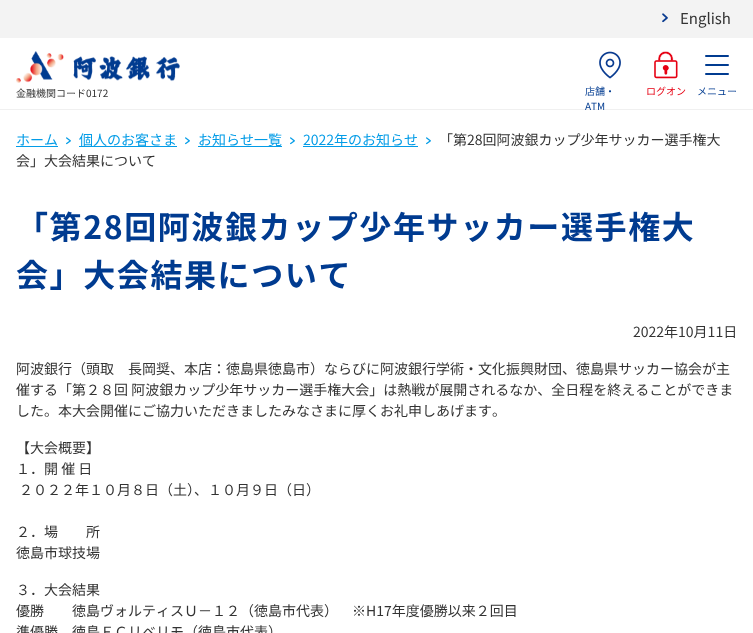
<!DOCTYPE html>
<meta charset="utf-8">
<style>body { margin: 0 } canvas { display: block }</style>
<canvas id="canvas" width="753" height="633"></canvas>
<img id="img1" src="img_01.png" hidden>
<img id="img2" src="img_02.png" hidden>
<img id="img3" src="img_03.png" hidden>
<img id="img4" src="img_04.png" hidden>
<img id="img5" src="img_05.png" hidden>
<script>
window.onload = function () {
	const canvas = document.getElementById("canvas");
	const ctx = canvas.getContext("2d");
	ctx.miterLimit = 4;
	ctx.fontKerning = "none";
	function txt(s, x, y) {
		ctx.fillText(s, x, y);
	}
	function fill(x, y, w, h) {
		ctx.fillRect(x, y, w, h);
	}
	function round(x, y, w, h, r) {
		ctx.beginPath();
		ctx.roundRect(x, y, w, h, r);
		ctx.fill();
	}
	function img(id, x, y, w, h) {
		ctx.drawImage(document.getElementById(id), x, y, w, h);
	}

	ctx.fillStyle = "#FFFFFF";
	fill(0, 0, 753, 633);
	ctx.fillStyle = "#F3F3F3";
	fill(0, 0, 753, 38);
	img("img1", 662, 13, 6, 10);
	ctx.fillStyle = "#F0F0F0";
	fill(0, 109, 753, 1);
	img("img2", 16, 51, 164, 32);
	img("img3", 599, 51, 22, 28);
	img("img4", 654, 51, 24, 28);
	ctx.fillStyle = "#003B90";
	round(705, 55, 24, 2, 1);
	round(705, 64, 24, 2, 1);
	round(705, 73, 24, 2, 1);
	img("img5", 426, 137, 5, 8);
	ctx.fillStyle = "#039CE7";
	fill(16, 146, 42, 1);
	img("img5", 66, 137, 5, 8);
	fill(79, 146, 98, 1);
	img("img5", 185, 137, 5, 8);
	fill(198, 146, 84, 1);
	img("img5", 290, 137, 5, 8);
	fill(303, 146, 115, 1);
	ctx.font = "15px Noto Sans JP";
	ctx.fillStyle = "#333333";
	txt("English", 680, 24);
	ctx.font = "10px Noto Sans JP";
	txt("金融機関コード0172", 16, 97);
	ctx.fillStyle = "#003B90";
	txt("店舗・", 585, 95);
	txt("ATM", 585, 110);
	ctx.fillStyle = "#E60012";
	txt("ログオン", 646, 95);
	ctx.fillStyle = "#003B90";
	txt("メニュー", 697, 95);
	ctx.font = "14px Noto Sans JP";
	ctx.fillStyle = "#333333";
	txt("「第28回阿波銀カップ少年サッカー選手権大", 439, 145);
	txt("会」大会結果について", 16, 166);
	ctx.fillStyle = "#039CE7";
	txt("ホーム", 16, 145);
	txt("個人のお客さま", 79, 145);
	txt("お知らせ一覧", 198, 145);
	txt("2022年のお知らせ", 303, 145);
	ctx.letterSpacing = "1.6px";
	ctx.font = "bold 32px Noto Sans JP";
	ctx.fillStyle = "#003B90";
	txt("「第28回阿波銀カップ少年サッカー選手権大", 16, 239);
	txt("会」大会結果について", 16, 287);
	ctx.letterSpacing = "0px";
	ctx.font = "14px Noto Sans JP";
	ctx.fillStyle = "#333333";
	txt("2022年10月11日", 633, 337);
	txt("阿波銀行（頭取　長岡奨、本店：徳島県徳島市）ならびに阿波銀行学術・文化振興財団、徳島県サッカー協会が主", 16, 374);
	txt("催する「第２８回 阿波銀カップ少年サッカー選手権大会」は熱戦が展開されるなか、全日程を終えることができま", 16, 395);
	txt("した。本大会開催にご協力いただきましたみなさまに厚くお礼申しあげます。", 16, 416);
	txt("【大会概要】", 16, 453);
	txt("１．開 催 日", 16, 474);
	txt("２０２２年１０月８日（土）、１０月９日（日）", 19, 495);
	txt("２．場　　所", 16, 537);
	txt("徳島市球技場", 16, 558);
	txt("３．大会結果", 16, 595);
	txt("優勝　　徳島ヴォルティスＵ－１２（徳島市代表）", 16, 616);
	txt("　※H17年度優勝以来２回目", 338, 616);
	txt("準優勝　徳島ＦＣリベリモ（徳島市代表）", 16, 637);
};
</script>
